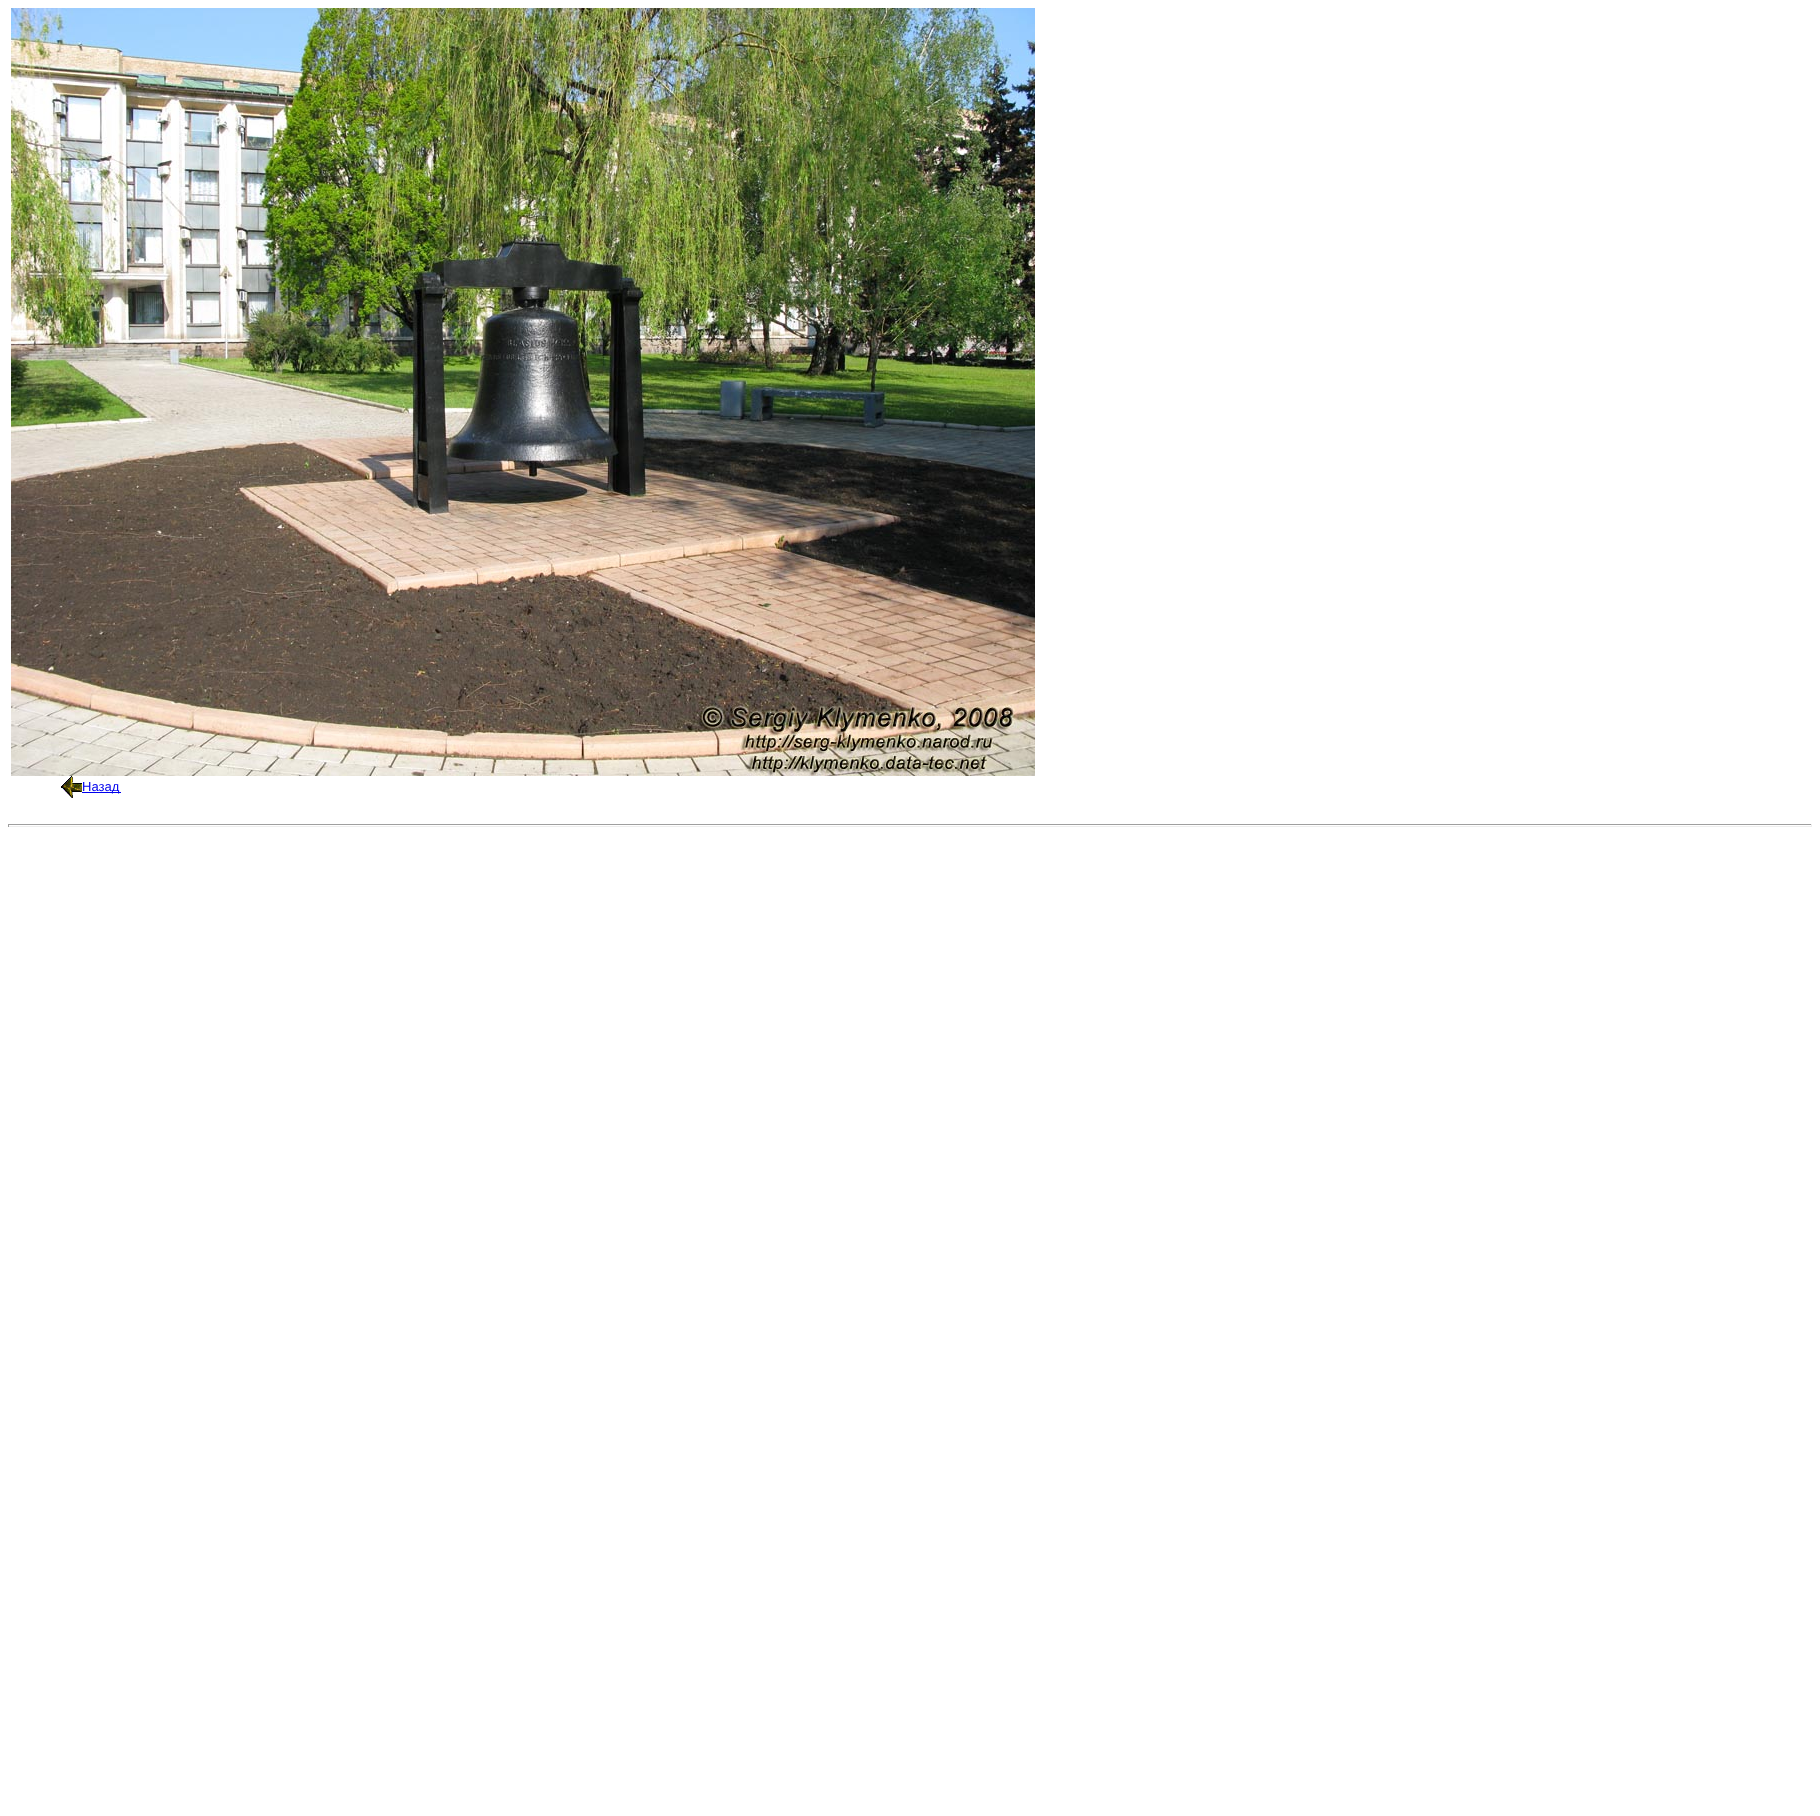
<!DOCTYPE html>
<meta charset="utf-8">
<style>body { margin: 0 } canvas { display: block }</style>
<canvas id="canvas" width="1820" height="1816"></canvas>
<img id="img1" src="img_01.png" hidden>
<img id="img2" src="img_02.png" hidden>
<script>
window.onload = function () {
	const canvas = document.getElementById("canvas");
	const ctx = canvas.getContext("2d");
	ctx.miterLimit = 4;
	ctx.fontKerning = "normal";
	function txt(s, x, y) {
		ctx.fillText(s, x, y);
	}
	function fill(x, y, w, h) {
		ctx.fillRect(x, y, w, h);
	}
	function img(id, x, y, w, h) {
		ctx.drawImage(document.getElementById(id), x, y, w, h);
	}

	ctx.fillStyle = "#FFFFFF";
	fill(0, 0, 1820, 1816);
	img("img1", 11, 8, 1024, 768);
	img("img2", 61, 776, 21, 22);
	ctx.fillStyle = "#0000EE";
	fill(82, 792, 39, 1);
	ctx.fillStyle = "#9F9F9F";
	fill(8, 824, 1804, 1);
	ctx.fillStyle = "#EEEEEE";
	fill(1811, 824, 1, 3);
	fill(8, 826, 1804, 1);
	ctx.fillStyle = "#9F9F9F";
	fill(8, 824, 1, 3);
	ctx.font = "13px Liberation Sans";
	ctx.fillStyle = "#0000EE";
	txt("Назад", 82, 791);
};
</script>
